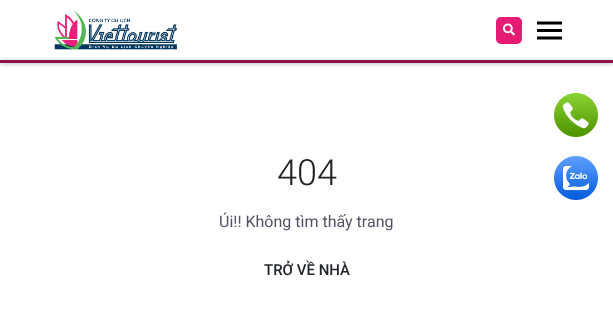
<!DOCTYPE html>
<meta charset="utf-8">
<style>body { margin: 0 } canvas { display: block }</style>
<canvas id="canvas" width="613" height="330"></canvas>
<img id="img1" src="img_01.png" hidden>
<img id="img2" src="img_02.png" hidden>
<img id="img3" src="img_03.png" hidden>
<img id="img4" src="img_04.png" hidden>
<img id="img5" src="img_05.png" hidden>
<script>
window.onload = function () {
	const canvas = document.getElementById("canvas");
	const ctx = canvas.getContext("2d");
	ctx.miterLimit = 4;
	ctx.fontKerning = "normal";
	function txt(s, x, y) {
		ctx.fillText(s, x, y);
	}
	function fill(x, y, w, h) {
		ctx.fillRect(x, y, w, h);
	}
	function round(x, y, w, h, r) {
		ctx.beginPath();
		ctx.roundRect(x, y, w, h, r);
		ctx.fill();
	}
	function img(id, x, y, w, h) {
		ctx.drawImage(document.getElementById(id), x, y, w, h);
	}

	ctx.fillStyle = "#FFFFFF";
	fill(0, 0, 613, 330);
	img("img1", 54, 10, 124, 40);
	ctx.fillStyle = "#E51B74";
	round(496, 17, 26, 27, 5);
	img("img2", 503, 23, 12, 13);
	img("img3", 537, 21, 25, 19);
	ctx.fillStyle = "rgba(0, 0, 0, 0.3)";
	ctx.filter = "blur(2px)";
	ctx.beginPath();
	ctx.rect(0, 61, 613, 3);
	ctx.fill();
	ctx.filter = "none";
	ctx.fillStyle = "#901049";
	fill(0, 60, 613, 3);
	img("img4", 554, 93, 44, 44);
	img("img5", 554, 156, 44, 44);
	ctx.font = "300 36px Roboto";
	ctx.fillStyle = "#212121";
	txt("404", 277, 185);
	ctx.font = "16px Roboto";
	ctx.fillStyle = "#515263";
	txt("Úi!! Không tìm thấy trang", 219, 227);
	ctx.font = "500 15px Roboto";
	ctx.fillStyle = "#212529";
	txt("TRỞ VỀ NHÀ", 264, 275);
};
</script>
